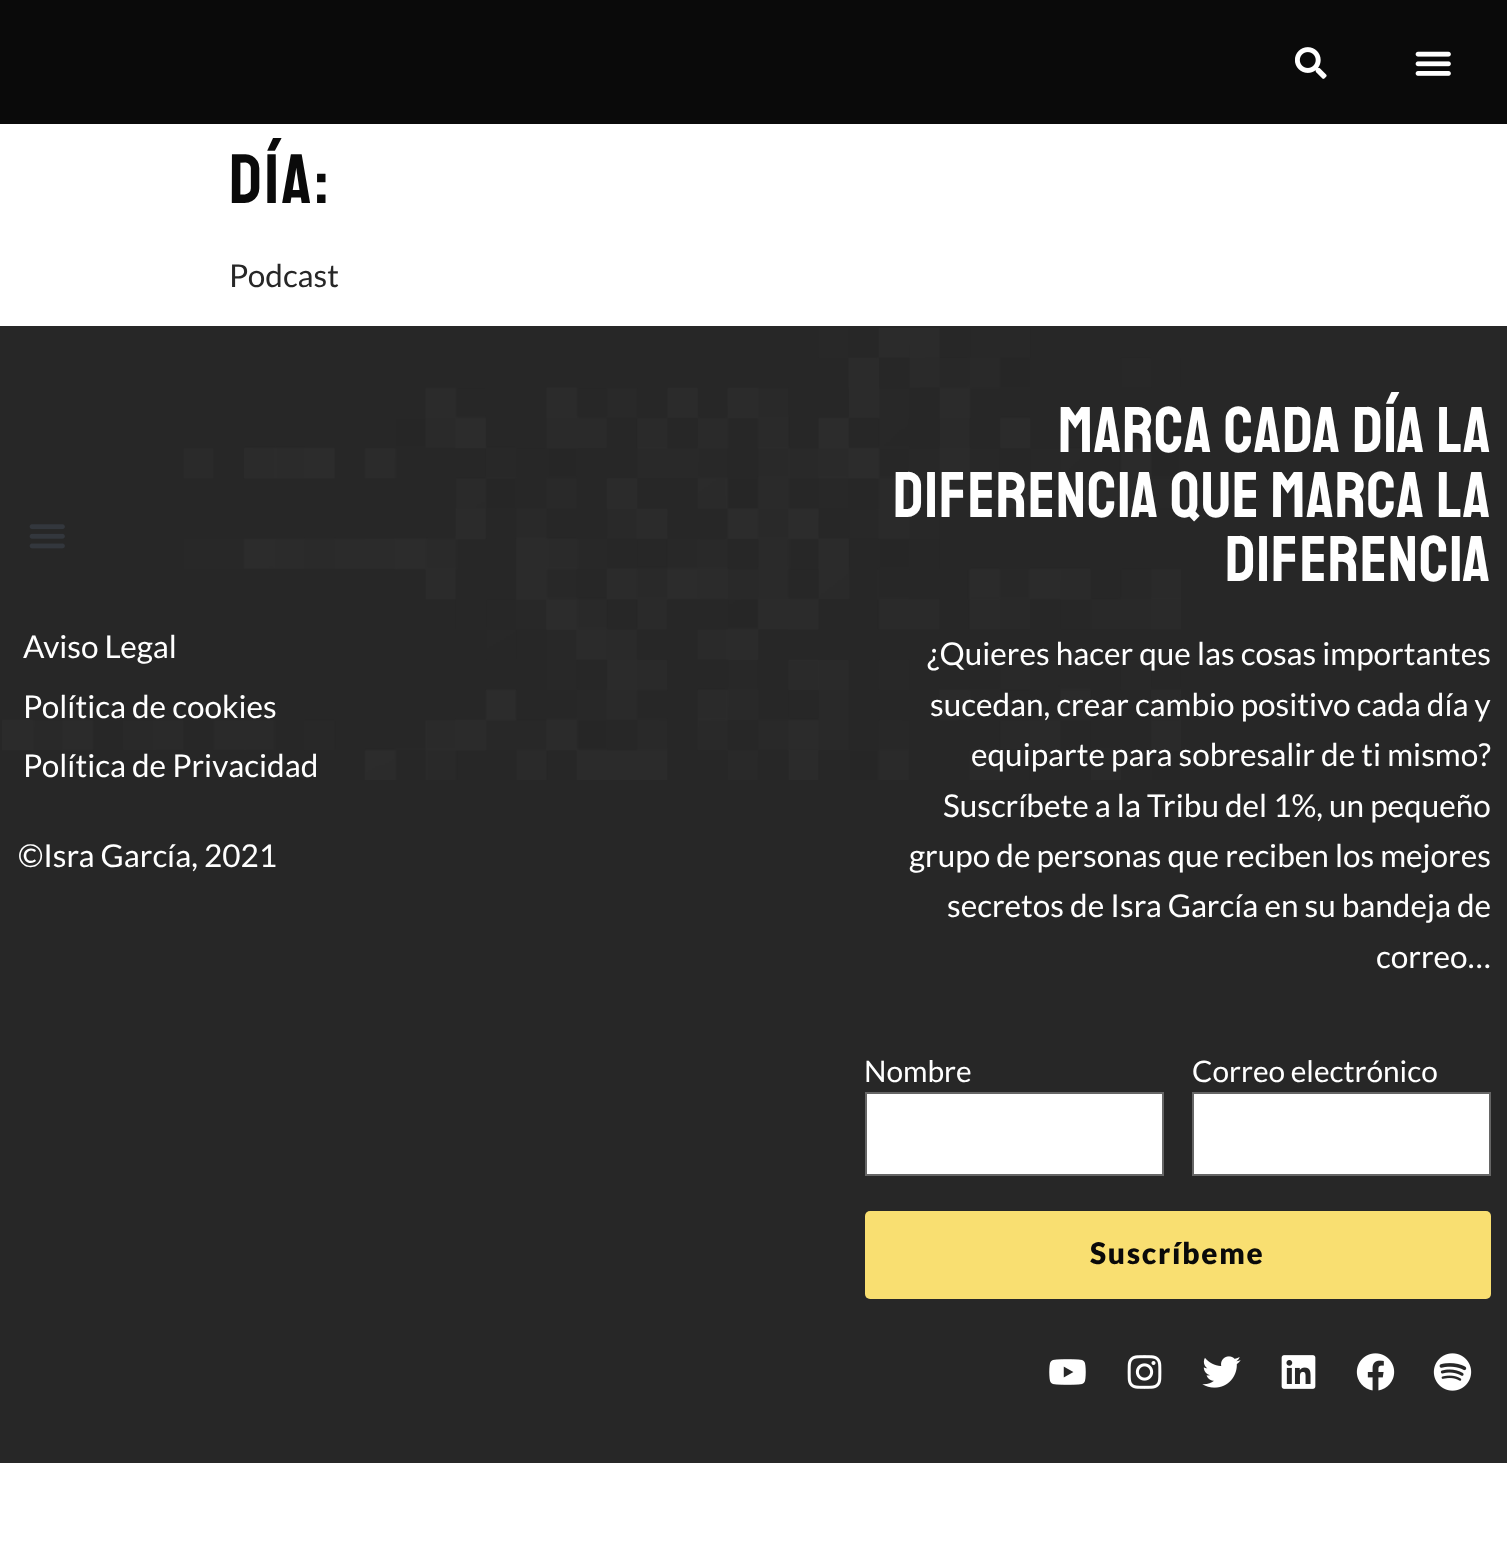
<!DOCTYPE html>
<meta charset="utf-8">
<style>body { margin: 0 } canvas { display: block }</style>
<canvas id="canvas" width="1507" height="1557"></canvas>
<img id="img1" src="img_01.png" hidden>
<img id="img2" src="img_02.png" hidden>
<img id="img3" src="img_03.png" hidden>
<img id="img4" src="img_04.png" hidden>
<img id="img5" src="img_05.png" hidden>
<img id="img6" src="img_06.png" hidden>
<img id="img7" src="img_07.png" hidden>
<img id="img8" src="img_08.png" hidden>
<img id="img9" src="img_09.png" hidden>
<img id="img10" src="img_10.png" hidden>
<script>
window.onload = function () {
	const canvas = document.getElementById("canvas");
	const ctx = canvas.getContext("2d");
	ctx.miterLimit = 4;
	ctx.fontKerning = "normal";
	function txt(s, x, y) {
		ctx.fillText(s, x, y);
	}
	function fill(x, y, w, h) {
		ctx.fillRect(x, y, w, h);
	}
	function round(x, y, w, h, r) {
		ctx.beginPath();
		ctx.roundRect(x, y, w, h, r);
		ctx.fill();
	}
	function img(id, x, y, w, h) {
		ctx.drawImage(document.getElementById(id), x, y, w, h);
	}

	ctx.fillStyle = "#FFFFFF";
	fill(0, 0, 1507, 1557);
	ctx.fillStyle = "#0A0A0A";
	fill(0, 0, 1507, 124);
	img("img1", 1295, 47, 32, 32);
	img("img2", 1415, 51, 36, 25);
	ctx.fillStyle = "#272727";
	fill(0, 326, 1507, 1137);
	img("img3", 2, 328, 1179, 452);
	img("img4", 29, 524, 36, 25);
	ctx.fillStyle = "#FFFFFF";
	ctx.beginPath();
	ctx.rect(866, 1093, 297, 82);
	ctx.fill();
	ctx.strokeStyle = "#666666";
	ctx.lineWidth = 2;
	ctx.stroke();
	ctx.beginPath();
	ctx.rect(1193, 1093, 297, 82);
	ctx.fill();
	ctx.stroke();
	ctx.fillStyle = "#F9DF71";
	round(865, 1211, 626, 88, 5);
	img("img5", 1049, 1359, 37, 26);
	img("img6", 1127, 1355, 35, 34);
	img("img7", 1202, 1356, 39, 32);
	img("img8", 1281, 1355, 35, 34);
	img("img9", 1356, 1353, 39, 38);
	img("img10", 1433, 1353, 39, 38);
	ctx.letterSpacing = "2.5px";
	ctx.font = "70px Staatliches";
	ctx.fillStyle = "#0A0A0A";
	txt("Día:", 229, 203);
	ctx.letterSpacing = "0px";
	ctx.font = "31.5px Lato";
	ctx.fillStyle = "#272727";
	txt("Podcast", 229, 287);
	ctx.fillStyle = "#FFFFFF";
	txt("Aviso Legal", 23, 658);
	txt("Política de cookies", 23, 718);
	txt("Política de Privacidad", 23, 777);
	txt("©Isra García, 2021", 18, 867);
	ctx.letterSpacing = "0.9px";
	ctx.font = "64.75px Staatliches";
	txt("MARCA CADA DÍA LA", 1058, 452);
	txt("DIFERENCIA QUE MARCA LA", 893, 517);
	txt("DIFERENCIA", 1225, 581);
	ctx.letterSpacing = "0px";
	ctx.font = "31.5px Lato";
	txt("¿Quieres hacer que las cosas importantes", 927, 665);
	txt("sucedan, crear cambio positivo cada día y", 930, 716);
	txt("equiparte para sobresalir de ti mismo?", 971, 766);
	txt("Suscríbete a la Tribu del 1%, un pequeño", 943, 817);
	txt("grupo de personas que reciben los mejores", 909, 867);
	txt("secretos de Isra García en su bandeja de", 947, 917);
	txt("correo…", 1376, 968);
	ctx.font = "29.75px Lato";
	txt("Nombre", 864, 1082);
	txt("Correo electrónico", 1192, 1082);
	ctx.letterSpacing = "1.75px";
	ctx.font = "900 29.75px Lato";
	ctx.fillStyle = "#0A0A0A";
	txt("Suscríbeme", 1090, 1264);
};
</script>
